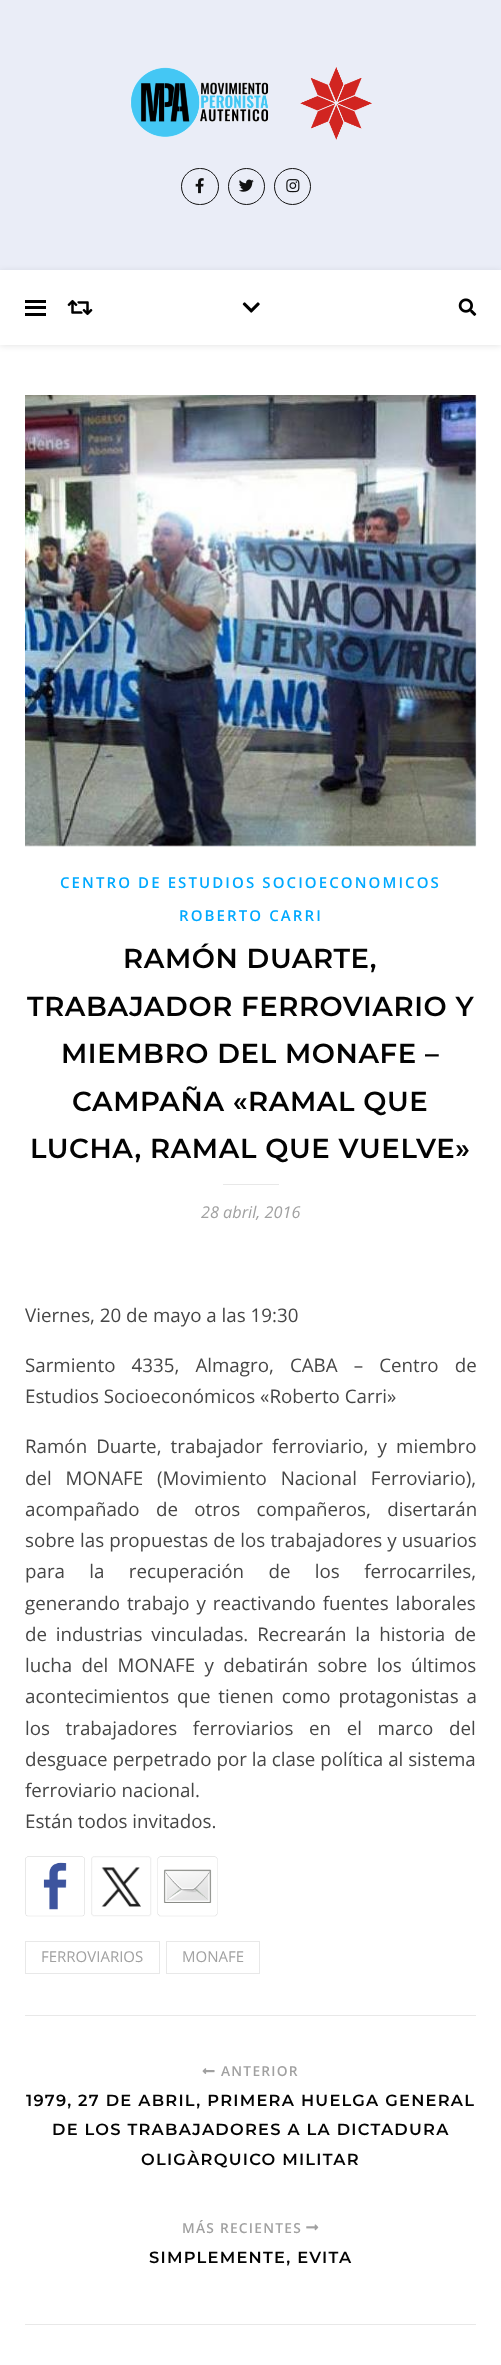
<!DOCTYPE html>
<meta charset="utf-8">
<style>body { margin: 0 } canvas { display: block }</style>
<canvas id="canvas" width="501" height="2365"></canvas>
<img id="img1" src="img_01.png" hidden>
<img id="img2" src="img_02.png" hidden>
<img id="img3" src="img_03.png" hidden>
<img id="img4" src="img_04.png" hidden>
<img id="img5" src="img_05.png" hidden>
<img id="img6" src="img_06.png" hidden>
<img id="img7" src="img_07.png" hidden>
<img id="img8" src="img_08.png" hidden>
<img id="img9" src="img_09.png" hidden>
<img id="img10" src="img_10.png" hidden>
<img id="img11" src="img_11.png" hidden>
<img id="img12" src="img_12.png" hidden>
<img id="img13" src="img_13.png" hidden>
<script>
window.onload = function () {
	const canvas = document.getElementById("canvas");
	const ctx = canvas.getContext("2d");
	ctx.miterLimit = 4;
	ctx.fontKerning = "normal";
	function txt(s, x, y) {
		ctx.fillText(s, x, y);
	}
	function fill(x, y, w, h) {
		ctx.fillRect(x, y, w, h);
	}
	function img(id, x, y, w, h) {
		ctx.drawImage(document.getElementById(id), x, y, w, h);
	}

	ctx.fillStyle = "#FFFFFF";
	fill(0, 0, 501, 2365);
	ctx.fillStyle = "#EAEDF7";
	fill(0, 0, 501, 270);
	img("img1", 130, 67, 242, 73);
	ctx.beginPath();
	ctx.roundRect(181.5, 168.5, 37, 36, 18);
	ctx.strokeStyle = "#111111";
	ctx.stroke();
	img("img2", 195, 178, 9, 16);
	ctx.beginPath();
	ctx.arc(246.5, 186.5, 18, 0, Math.PI * 2);
	ctx.stroke();
	img("img3", 239, 179, 15, 13);
	ctx.beginPath();
	ctx.arc(292.5, 186.5, 18, 0, Math.PI * 2);
	ctx.stroke();
	img("img4", 286, 179, 14, 14);
	ctx.save();
	ctx.beginPath();
	ctx.moveTo(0, 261);
	ctx.lineTo(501, 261);
	ctx.lineTo(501, 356);
	ctx.lineTo(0, 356);
	ctx.closePath();
	ctx.moveTo(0, 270);
	ctx.lineTo(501, 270);
	ctx.lineTo(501, 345);
	ctx.lineTo(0, 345);
	ctx.closePath();
	ctx.clip("evenodd");
	ctx.fillStyle = "rgba(0, 0, 0, 0.1)";
	ctx.filter = "blur(3px)";
	ctx.beginPath();
	ctx.rect(0, 271, 501, 75);
	ctx.fill();
	ctx.filter = "none";
	ctx.restore();
	ctx.fillStyle = "#000000";
	fill(25, 300, 21, 3);
	fill(25, 306, 21, 3);
	fill(25, 313, 21, 3);
	img("img5", 67, 299, 26, 17);
	img("img6", 242, 302, 18, 11);
	img("img7", 458, 298, 19, 18);
	img("img8", 25, 395, 452, 452);
	ctx.fillStyle = "#E8E8E8";
	fill(223, 1184, 56, 1);
	img("img9", 25, 1856, 60, 61);
	img("img10", 91, 1856, 61, 61);
	img("img11", 157, 1856, 61, 61);
	fill(25, 2015, 451, 1);
	ctx.strokeStyle = "#E8E8E8";
	ctx.strokeRect(25.5, 1941.5, 134, 32);
	ctx.strokeRect(166.5, 1941.5, 93, 32);
	fill(25, 2324, 451, 1);
	img("img12", 202, 2068, 13, 6);
	img("img13", 306, 2224, 13, 7);
	ctx.letterSpacing = "2.1px";
	ctx.font = "600 15px Open Sans";
	ctx.fillStyle = "#00A9FF";
	txt("CENTRO DE ESTUDIOS SOCIOECONOMICOS", 60, 888);
	txt("ROBERTO CARRI", 179, 921);
	ctx.letterSpacing = "0.6px";
	ctx.font = "600 27.5px Montserrat";
	ctx.fillStyle = "#030303";
	txt("RAMÓN DUARTE,", 123, 968);
	txt("TRABAJADOR FERROVIARIO Y", 27, 1016);
	txt("MIEMBRO DEL MONAFE –", 61, 1063);
	txt("CAMPAÑA «RAMAL QUE", 72, 1111);
	txt("LUCHA, RAMAL QUE VUELVE»", 30, 1158);
	ctx.letterSpacing = "0px";
	ctx.font = "italic 16.25px Open Sans";
	ctx.fillStyle = "#A1A1A1";
	txt("28 abril, 2016", 201, 1218);
	ctx.font = "18.75px Open Sans";
	ctx.fillStyle = "#464646";
	txt("Viernes, 20 de mayo a las 19:30", 25, 1322);
	ctx.wordSpacing = "11.25px";
	txt("Sarmiento 4335, Almagro, CABA – Centro de", 25, 1372);
	ctx.wordSpacing = "0px";
	txt("Estudios Socioeconómicos «Roberto Carri»", 25, 1403);
	ctx.wordSpacing = "4.25px";
	txt("Ramón Duarte, trabajador ferroviario, y miembro", 25, 1453);
	ctx.wordSpacing = "9px";
	txt("del MONAFE (Movimiento Nacional Ferroviario),", 25, 1485);
	ctx.wordSpacing = "11.5px";
	txt("acompañado de otros compañeros, disertarán", 25, 1516);
	ctx.wordSpacing = "0.25px";
	txt("sobre las propuestas de los trabajadores y usuarios", 25, 1547);
	ctx.wordSpacing = "19.5px";
	txt("para la recuperación de los ferrocarriles,", 25, 1578);
	ctx.wordSpacing = "2px";
	txt("generando trabajo y reactivando fuentes laborales", 25, 1610);
	ctx.wordSpacing = "4px";
	txt("de industrias vinculadas. Recrearán la historia de", 25, 1641);
	ctx.wordSpacing = "4.5px";
	txt("lucha del MONAFE y debatirán sobre los últimos", 25, 1672);
	ctx.wordSpacing = "3px";
	txt("acontecimientos que tienen como protagonistas a", 25, 1703);
	ctx.wordSpacing = "10.75px";
	txt("los trabajadores ferroviarios en el marco del", 25, 1735);
	ctx.wordSpacing = "0px";
	txt("desguace perpetrado por la clase política al sistema", 25, 1766);
	txt("ferroviario nacional.", 25, 1797);
	txt("Están todos invitados.", 25, 1828);
	ctx.font = "15px Open Sans";
	ctx.fillStyle = "#A1A1A1";
	txt("FERROVIARIOS", 41, 1962);
	txt("MONAFE", 182, 1962);
	ctx.letterSpacing = "1.25px";
	ctx.font = "600 13.75px Open Sans";
	txt("ANTERIOR", 221, 2076);
	ctx.font = "600 16.25px Montserrat";
	ctx.fillStyle = "#030303";
	txt("1979, 27 DE ABRIL, PRIMERA HUELGA GENERAL", 26, 2106);
	txt("DE LOS TRABAJADORES A LA DICTADURA", 52, 2135);
	txt("OLIGÀRQUICO MILITAR", 141, 2165);
	ctx.font = "600 13.75px Open Sans";
	ctx.fillStyle = "#A1A1A1";
	txt("MÁS RECIENTES", 182, 2233);
	ctx.font = "600 16.25px Montserrat";
	ctx.fillStyle = "#030303";
	txt("SIMPLEMENTE, EVITA", 149, 2263);
};
</script>
